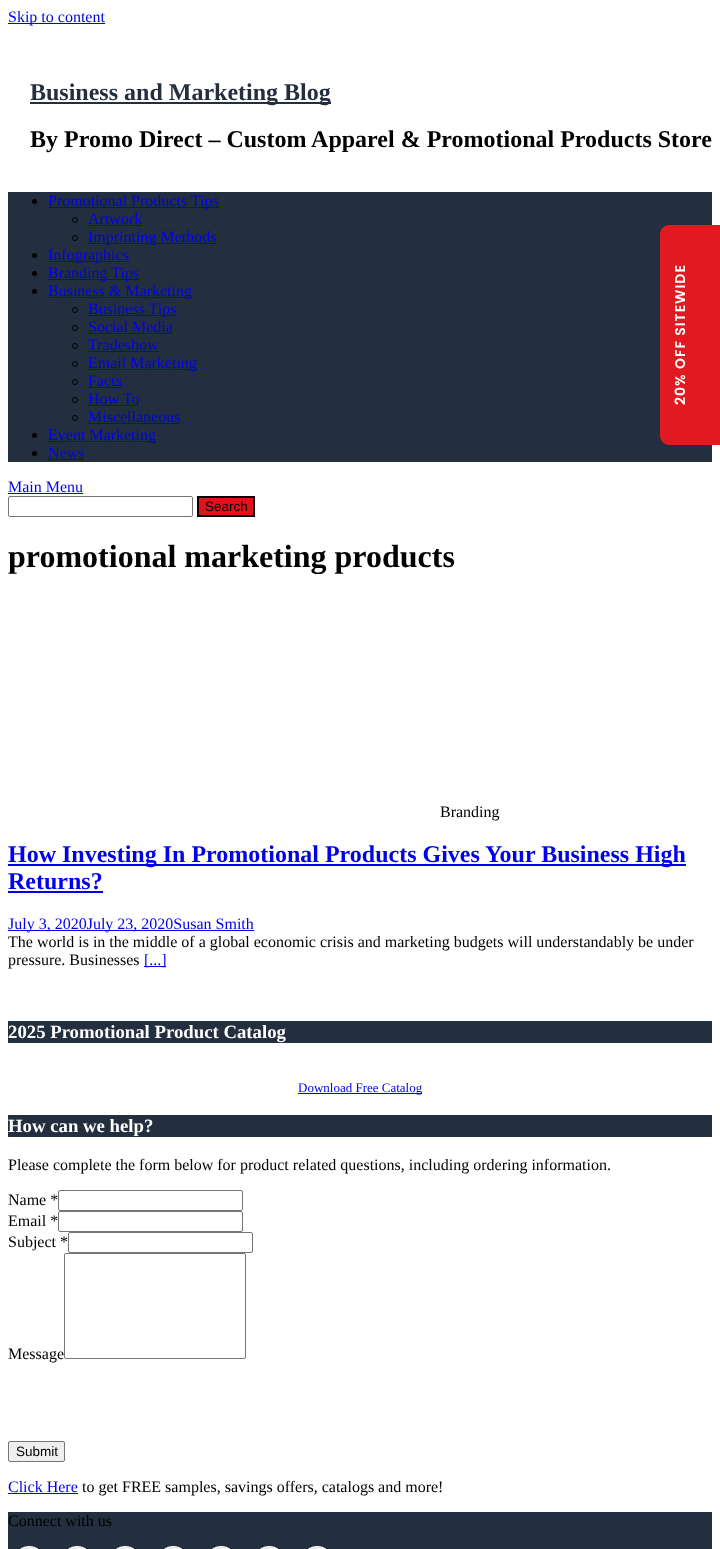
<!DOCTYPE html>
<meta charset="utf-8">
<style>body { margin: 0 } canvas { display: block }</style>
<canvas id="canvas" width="720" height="1549"></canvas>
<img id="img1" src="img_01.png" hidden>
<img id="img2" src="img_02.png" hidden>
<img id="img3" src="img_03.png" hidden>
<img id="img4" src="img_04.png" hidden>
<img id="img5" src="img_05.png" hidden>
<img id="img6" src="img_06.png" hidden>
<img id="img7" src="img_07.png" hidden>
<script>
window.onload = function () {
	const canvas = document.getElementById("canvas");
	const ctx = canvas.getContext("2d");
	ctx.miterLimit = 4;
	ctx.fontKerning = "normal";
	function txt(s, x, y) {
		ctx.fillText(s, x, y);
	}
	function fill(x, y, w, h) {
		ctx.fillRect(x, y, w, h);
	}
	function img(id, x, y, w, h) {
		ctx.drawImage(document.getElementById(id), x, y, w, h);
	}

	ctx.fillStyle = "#FFFFFF";
	fill(0, 0, 720, 1549);
	ctx.fillStyle = "#0000EE";
	fill(8, 23, 97, 1);
	ctx.fillStyle = "#232F3E";
	fill(30, 102, 301, 2);
	fill(8, 192, 704, 270);
	ctx.fillStyle = "#000000";
	ctx.beginPath();
	ctx.arc(34.5, 201.5, 2.5, 0, Math.PI * 2);
	ctx.fill();
	ctx.fillStyle = "#0000EE";
	fill(48, 207, 171, 1);
	ctx.beginPath();
	ctx.arc(75, 220, 2.5, 0, Math.PI * 2);
	ctx.strokeStyle = "#000000";
	ctx.stroke();
	fill(88, 225, 54, 1);
	ctx.beginPath();
	ctx.arc(75, 238, 2.5, 0, Math.PI * 2);
	ctx.stroke();
	fill(88, 243, 128, 1);
	ctx.fillStyle = "#000000";
	ctx.beginPath();
	ctx.arc(34.5, 255.5, 2.5, 0, Math.PI * 2);
	ctx.fill();
	ctx.fillStyle = "#0000EE";
	fill(48, 261, 81, 1);
	ctx.fillStyle = "#000000";
	ctx.beginPath();
	ctx.arc(34.5, 273.5, 2.5, 0, Math.PI * 2);
	ctx.fill();
	ctx.fillStyle = "#0000EE";
	fill(48, 279, 91, 1);
	ctx.fillStyle = "#000000";
	ctx.beginPath();
	ctx.arc(34.5, 291.5, 2.5, 0, Math.PI * 2);
	ctx.fill();
	ctx.fillStyle = "#0000EE";
	fill(48, 297, 144, 1);
	ctx.beginPath();
	ctx.arc(75, 310, 2.5, 0, Math.PI * 2);
	ctx.stroke();
	fill(88, 315, 89, 1);
	ctx.beginPath();
	ctx.arc(75, 328, 2.5, 0, Math.PI * 2);
	ctx.stroke();
	fill(88, 333, 85, 1);
	ctx.beginPath();
	ctx.arc(75, 346, 2.5, 0, Math.PI * 2);
	ctx.stroke();
	fill(88, 351, 71, 1);
	ctx.beginPath();
	ctx.arc(75, 364, 2.5, 0, Math.PI * 2);
	ctx.stroke();
	fill(88, 369, 109, 1);
	ctx.beginPath();
	ctx.arc(75, 382, 2.5, 0, Math.PI * 2);
	ctx.stroke();
	fill(88, 387, 34, 1);
	ctx.beginPath();
	ctx.arc(75, 400, 2.5, 0, Math.PI * 2);
	ctx.stroke();
	fill(88, 405, 51, 1);
	ctx.beginPath();
	ctx.arc(75, 418, 2.5, 0, Math.PI * 2);
	ctx.stroke();
	fill(88, 423, 92, 1);
	ctx.fillStyle = "#000000";
	ctx.beginPath();
	ctx.arc(34.5, 435.5, 2.5, 0, Math.PI * 2);
	ctx.fill();
	ctx.fillStyle = "#0000EE";
	fill(48, 441, 108, 1);
	ctx.fillStyle = "#000000";
	ctx.beginPath();
	ctx.arc(34.5, 453.5, 2.5, 0, Math.PI * 2);
	ctx.fill();
	ctx.fillStyle = "#0000EE";
	fill(48, 459, 36, 1);
	fill(8, 493, 75, 1);
	ctx.beginPath();
	ctx.roundRect(8.5, 496.5, 184, 20, 1.5);
	ctx.strokeStyle = "#767676";
	ctx.stroke();
	ctx.fillStyle = "#E2121B";
	ctx.beginPath();
	ctx.rect(198, 497, 56, 19);
	ctx.fill();
	ctx.strokeStyle = "#000000";
	ctx.lineWidth = 2;
	ctx.stroke();
	ctx.fillStyle = "#E11921";
	ctx.beginPath();
	ctx.moveTo(660, 435);
	ctx.lineTo(660, 235);
	ctx.bezierCurveTo(660, 229, 664, 225, 670, 225);
	ctx.lineTo(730, 225);
	ctx.lineTo(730, 445);
	ctx.lineTo(670, 445);
	ctx.bezierCurveTo(664, 445, 660, 441, 660, 435);
	ctx.closePath();
	ctx.fill();
	ctx.fillStyle = "#0000EE";
	fill(8, 864, 678, 2);
	fill(8, 891, 95, 2);
	fill(8, 930, 246, 1);
	fill(144, 966, 22, 1);
	ctx.fillStyle = "#232F3E";
	fill(8, 1021, 704, 22);
	ctx.fillStyle = "#0000EE";
	fill(298, 1093, 124, 1);
	ctx.fillStyle = "#232F3E";
	fill(8, 1115, 704, 22);
	ctx.beginPath();
	ctx.roundRect(58.5, 1190.5, 184, 20, 1.5);
	ctx.strokeStyle = "#767676";
	ctx.lineWidth = 1;
	ctx.stroke();
	ctx.beginPath();
	ctx.roundRect(58.5, 1211.5, 184, 20, 1.5);
	ctx.stroke();
	ctx.beginPath();
	ctx.roundRect(68.5, 1232.5, 184, 20, 1.5);
	ctx.stroke();
	ctx.beginPath();
	ctx.roundRect(64.5, 1253.5, 181, 105, 1.5);
	ctx.stroke();
	ctx.fillStyle = "#EFEFEF";
	ctx.beginPath();
	ctx.roundRect(8.5, 1441.5, 56, 20, 1.5);
	ctx.fill();
	ctx.stroke();
	ctx.fillStyle = "#0000EE";
	fill(8, 1493, 70, 1);
	ctx.fillStyle = "#232F3E";
	fill(8, 1512, 704, 37);
	img("img1", 20, 1546, 19, 3);
	img("img2", 68, 1546, 19, 3);
	img("img3", 116, 1546, 19, 3);
	img("img4", 164, 1546, 19, 3);
	img("img5", 212, 1546, 19, 3);
	img("img6", 260, 1546, 19, 3);
	img("img7", 308, 1546, 19, 3);
	ctx.font = "16px Liberation Serif";
	ctx.fillStyle = "#0000EE";
	txt("Skip to content", 8, 22);
	ctx.font = "bold 24px Liberation Serif";
	ctx.fillStyle = "#232F3E";
	txt("Business and Marketing Blog", 30, 100);
	ctx.fillStyle = "#000000";
	txt("By Promo Direct – Custom Apparel & Promotional Products Store", 30, 147);
	ctx.font = "16px Liberation Serif";
	ctx.fillStyle = "#0000EE";
	txt("Promotional Products Tips", 48, 206);
	txt("Artwork", 88, 224);
	txt("Imprinting Methods", 88, 242);
	txt("Infographics", 48, 260);
	txt("Branding Tips", 48, 278);
	txt("Business & Marketing", 48, 296);
	txt("Business Tips", 88, 314);
	txt("Social Media", 88, 332);
	txt("Tradeshow", 88, 350);
	txt("Email Marketing", 88, 368);
	txt("Facts", 88, 386);
	txt("How To", 88, 404);
	txt("Miscellaneous", 88, 422);
	txt("Event Marketing", 48, 440);
	txt("News", 48, 458);
	txt("Main Menu", 8, 492);
	ctx.font = "13.5px Liberation Sans";
	ctx.fillStyle = "#000000";
	txt("Search", 205, 511);
	ctx.letterSpacing = "1px";
	ctx.font = "600 14px Poppins";
	ctx.fillStyle = "#FFFFFF";
	ctx.save();
	ctx.translate(685, 405);
	ctx.rotate(-90 * Math.PI / 180);
	ctx.fillText("20% OFF SITEWIDE", 0, 0);
	ctx.restore();
	ctx.letterSpacing = "0px";
	ctx.font = "bold 32px Liberation Serif";
	ctx.fillStyle = "#000000";
	txt("promotional marketing products", 8, 567);
	ctx.font = "16px Liberation Serif";
	txt("Branding", 440, 817);
	ctx.font = "bold 24px Liberation Serif";
	ctx.fillStyle = "#0000EE";
	txt("How Investing In Promotional Products Gives Your Business High", 8, 862);
	txt("Returns?", 8, 889);
	ctx.font = "16px Liberation Serif";
	txt("July 3, 2020July 23, 2020Susan Smith", 8, 929);
	ctx.fillStyle = "#000000";
	txt("The world is in the middle of a global economic crisis and marketing budgets will understandably be under", 8, 947);
	txt("pressure. Businesses", 8, 965);
	ctx.fillStyle = "#0000EE";
	txt("[...]", 144, 965);
	ctx.font = "bold 18.75px Liberation Serif";
	ctx.fillStyle = "#FFFFFF";
	txt("2025 Promotional Product Catalog", 8, 1038);
	ctx.font = "13px Liberation Serif";
	ctx.fillStyle = "#0000EE";
	txt("Download Free Catalog", 298, 1092);
	ctx.font = "bold 18.75px Liberation Serif";
	ctx.fillStyle = "#FFFFFF";
	txt("How can we help?", 8, 1132);
	ctx.font = "16px Liberation Serif";
	ctx.fillStyle = "#000000";
	txt("Please complete the form below for product related questions, including ordering information.", 8, 1170);
	txt("Name *", 8, 1205);
	txt("Email *", 8, 1226);
	txt("Subject *", 8, 1247);
	txt("Message", 8, 1359);
	ctx.font = "13.5px Liberation Sans";
	txt("Submit", 16, 1456);
	ctx.font = "16px Liberation Serif";
	ctx.fillStyle = "#0000EE";
	txt("Click Here", 8, 1492);
	ctx.fillStyle = "#000000";
	txt("to get FREE samples, savings offers, catalogs and more!", 82, 1492);
	txt("Connect with us", 8, 1526);
};
</script>
